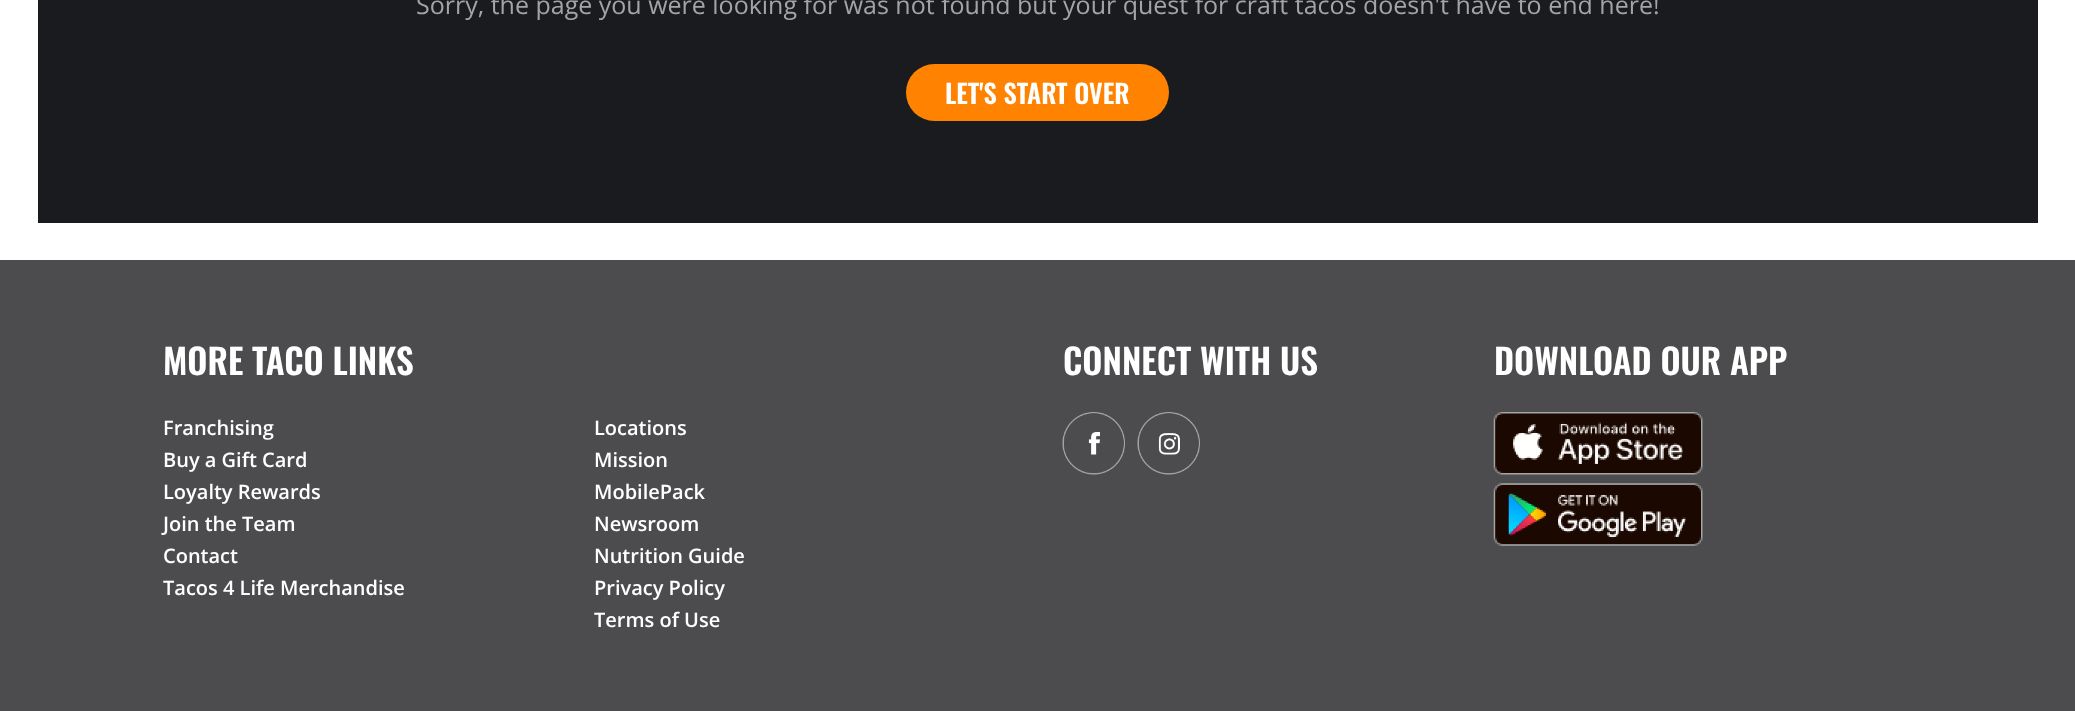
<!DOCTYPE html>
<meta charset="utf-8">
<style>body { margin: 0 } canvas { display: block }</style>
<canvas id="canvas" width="2075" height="711"></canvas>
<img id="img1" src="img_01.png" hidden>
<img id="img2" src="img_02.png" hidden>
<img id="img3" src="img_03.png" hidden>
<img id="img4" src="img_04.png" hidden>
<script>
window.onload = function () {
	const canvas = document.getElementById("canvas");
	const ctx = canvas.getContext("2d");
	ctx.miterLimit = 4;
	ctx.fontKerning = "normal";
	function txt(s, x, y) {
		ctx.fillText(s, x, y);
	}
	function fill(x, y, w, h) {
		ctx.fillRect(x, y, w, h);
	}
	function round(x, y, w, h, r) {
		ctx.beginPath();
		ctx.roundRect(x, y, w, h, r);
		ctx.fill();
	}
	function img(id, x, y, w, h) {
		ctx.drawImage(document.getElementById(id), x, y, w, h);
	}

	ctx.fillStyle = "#FFFFFF";
	fill(0, 0, 2075, 711);
	ctx.fillStyle = "#1A1B1F";
	fill(38, 0, 2000, 223);
	ctx.fillStyle = "#FF8200";
	round(906, 64, 263, 57, 28.5);
	ctx.fillStyle = "#4C4C4E";
	fill(0, 260, 2075, 451);
	img("img1", 1062, 412, 63, 63);
	img("img2", 1137, 412, 63, 63);
	img("img3", 1493, 412, 210, 63);
	img("img4", 1493, 483, 210, 63);
	ctx.font = "25px Open Sans";
	ctx.fillStyle = "#A3A4A5";
	txt("Sorry, the page you were looking for was not found but your quest for craft tacos doesn't have to end here!", 416, 14);
	ctx.font = "600 26.25px Oswald";
	ctx.fillStyle = "#FFFFFF";
	txt("LET'S START OVER", 945, 104);
	ctx.font = "600 35px Oswald";
	txt("MORE TACO LINKS", 163, 375);
	ctx.font = "600 20px Open Sans";
	txt("Franchising", 163, 435);
	txt("Buy a Gift Card", 163, 467);
	txt("Loyalty Rewards", 163, 499);
	txt("Join the Team", 163, 531);
	txt("Contact", 163, 563);
	txt("Tacos 4 Life Merchandise", 163, 595);
	txt("Locations", 594, 435);
	txt("Mission", 594, 467);
	txt("MobilePack", 594, 499);
	txt("Newsroom", 594, 531);
	txt("Nutrition Guide", 594, 563);
	txt("Privacy Policy", 594, 595);
	txt("Terms of Use", 594, 627);
	ctx.font = "600 35px Oswald";
	txt("CONNECT WITH US", 1063, 375);
	txt("DOWNLOAD OUR APP", 1494, 375);
};
</script>
